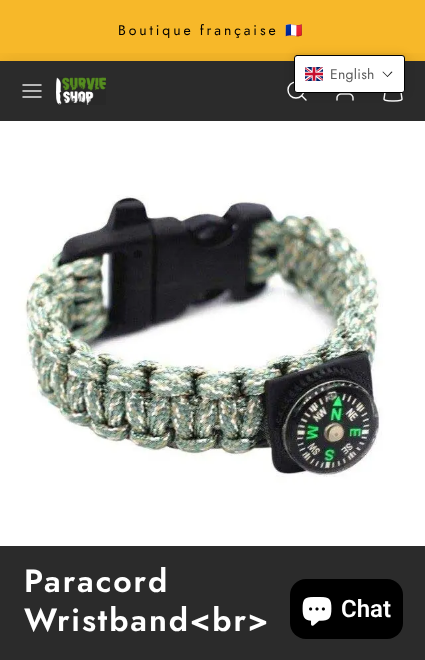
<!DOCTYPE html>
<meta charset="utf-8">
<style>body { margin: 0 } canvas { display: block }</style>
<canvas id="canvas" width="425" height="660"></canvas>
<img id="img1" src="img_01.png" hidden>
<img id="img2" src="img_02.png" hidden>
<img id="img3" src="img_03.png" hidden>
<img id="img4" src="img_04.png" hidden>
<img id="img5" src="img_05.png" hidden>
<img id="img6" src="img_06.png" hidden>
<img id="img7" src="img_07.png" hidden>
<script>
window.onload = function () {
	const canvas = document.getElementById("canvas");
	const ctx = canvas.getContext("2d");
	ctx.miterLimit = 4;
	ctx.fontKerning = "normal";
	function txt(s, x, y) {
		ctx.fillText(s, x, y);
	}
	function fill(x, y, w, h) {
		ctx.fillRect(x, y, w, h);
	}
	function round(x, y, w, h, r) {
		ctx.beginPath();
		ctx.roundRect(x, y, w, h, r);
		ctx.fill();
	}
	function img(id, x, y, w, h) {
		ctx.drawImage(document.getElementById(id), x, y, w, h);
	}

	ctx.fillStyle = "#2B2B2B";
	fill(0, 0, 425, 660);
	ctx.fillStyle = "#F7B829";
	fill(0, 0, 425, 61);
	ctx.save();
	ctx.beginPath();
	ctx.rect(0, 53, 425, 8);
	ctx.clip();
	ctx.fillStyle = "rgba(0, 0, 0, 0.1)";
	ctx.filter = "blur(10px)";
	ctx.beginPath();
	ctx.rect(0, 61, 425, 60);
	ctx.fill();
	ctx.filter = "none";
	ctx.restore();
	img("img1", 22, 84, 20, 14);
	img("img2", 56, 77, 50, 28);
	ctx.beginPath();
	ctx.arc(296, 90, 8, 0, Math.PI * 2);
	ctx.strokeStyle = "#FFFFFF";
	ctx.lineWidth = 1.4;
	ctx.stroke();
	ctx.beginPath();
	ctx.moveTo(306, 100);
	ctx.lineTo(301.5, 95.5);
	ctx.lineCap = "round";
	ctx.lineJoin = "round";
	ctx.stroke();
	img("img3", 336, 93, 18, 8);
	img("img4", 383, 93, 20, 9);
	ctx.fillStyle = "rgba(0, 0, 0, 0.15)";
	ctx.filter = "blur(5px)";
	ctx.beginPath();
	ctx.roundRect(294, 55, 111, 38, 3);
	ctx.fill();
	ctx.filter = "none";
	ctx.fillStyle = "#FFFFFF";
	ctx.beginPath();
	ctx.roundRect(294.5, 55.5, 110, 37, 2.5);
	ctx.fill();
	ctx.strokeStyle = "#000000";
	ctx.lineWidth = 1;
	ctx.lineJoin = "miter";
	ctx.stroke();
	img("img5", 305, 67, 18, 14);
	ctx.fillStyle = "#1A1A1A";
	ctx.beginPath();
	ctx.moveTo(391.5, 71.5);
	ctx.lineTo(392.5, 72);
	ctx.lineTo(387.5, 77);
	ctx.lineTo(387, 76.5);
	ctx.closePath();
	ctx.fill();
	ctx.beginPath();
	ctx.moveTo(383, 71.5);
	ctx.lineTo(388, 76.5);
	ctx.lineTo(387.5, 77);
	ctx.lineTo(382.5, 72);
	ctx.closePath();
	ctx.fill();
	img("img6", 0, 121, 425, 425);
	ctx.fillStyle = "#000000";
	round(290, 579, 113, 60, 16);
	img("img7", 302, 597, 30, 29);
	ctx.letterSpacing = "2.9px";
	ctx.wordSpacing = "-1px";
	ctx.font = "14px Jost";
	txt("Boutique française", 118, 35);
	ctx.wordSpacing = "0px";
	ctx.font = "14px Noto Color Emoji";
	txt("🇫🇷", 285, 35);
	ctx.letterSpacing = "0.25px";
	ctx.font = "14px Jost";
	ctx.fillStyle = "#5C5C5C";
	txt("English", 330, 79);
	ctx.letterSpacing = "1.9px";
	ctx.font = "600 32px Jost";
	ctx.fillStyle = "#FFFFFF";
	txt("Paracord", 24, 592);
	txt("Wristband<br>", 24, 631);
	ctx.letterSpacing = "0px";
	ctx.font = "600 24px Roboto";
	txt("Chat", 341, 617);
};
</script>
